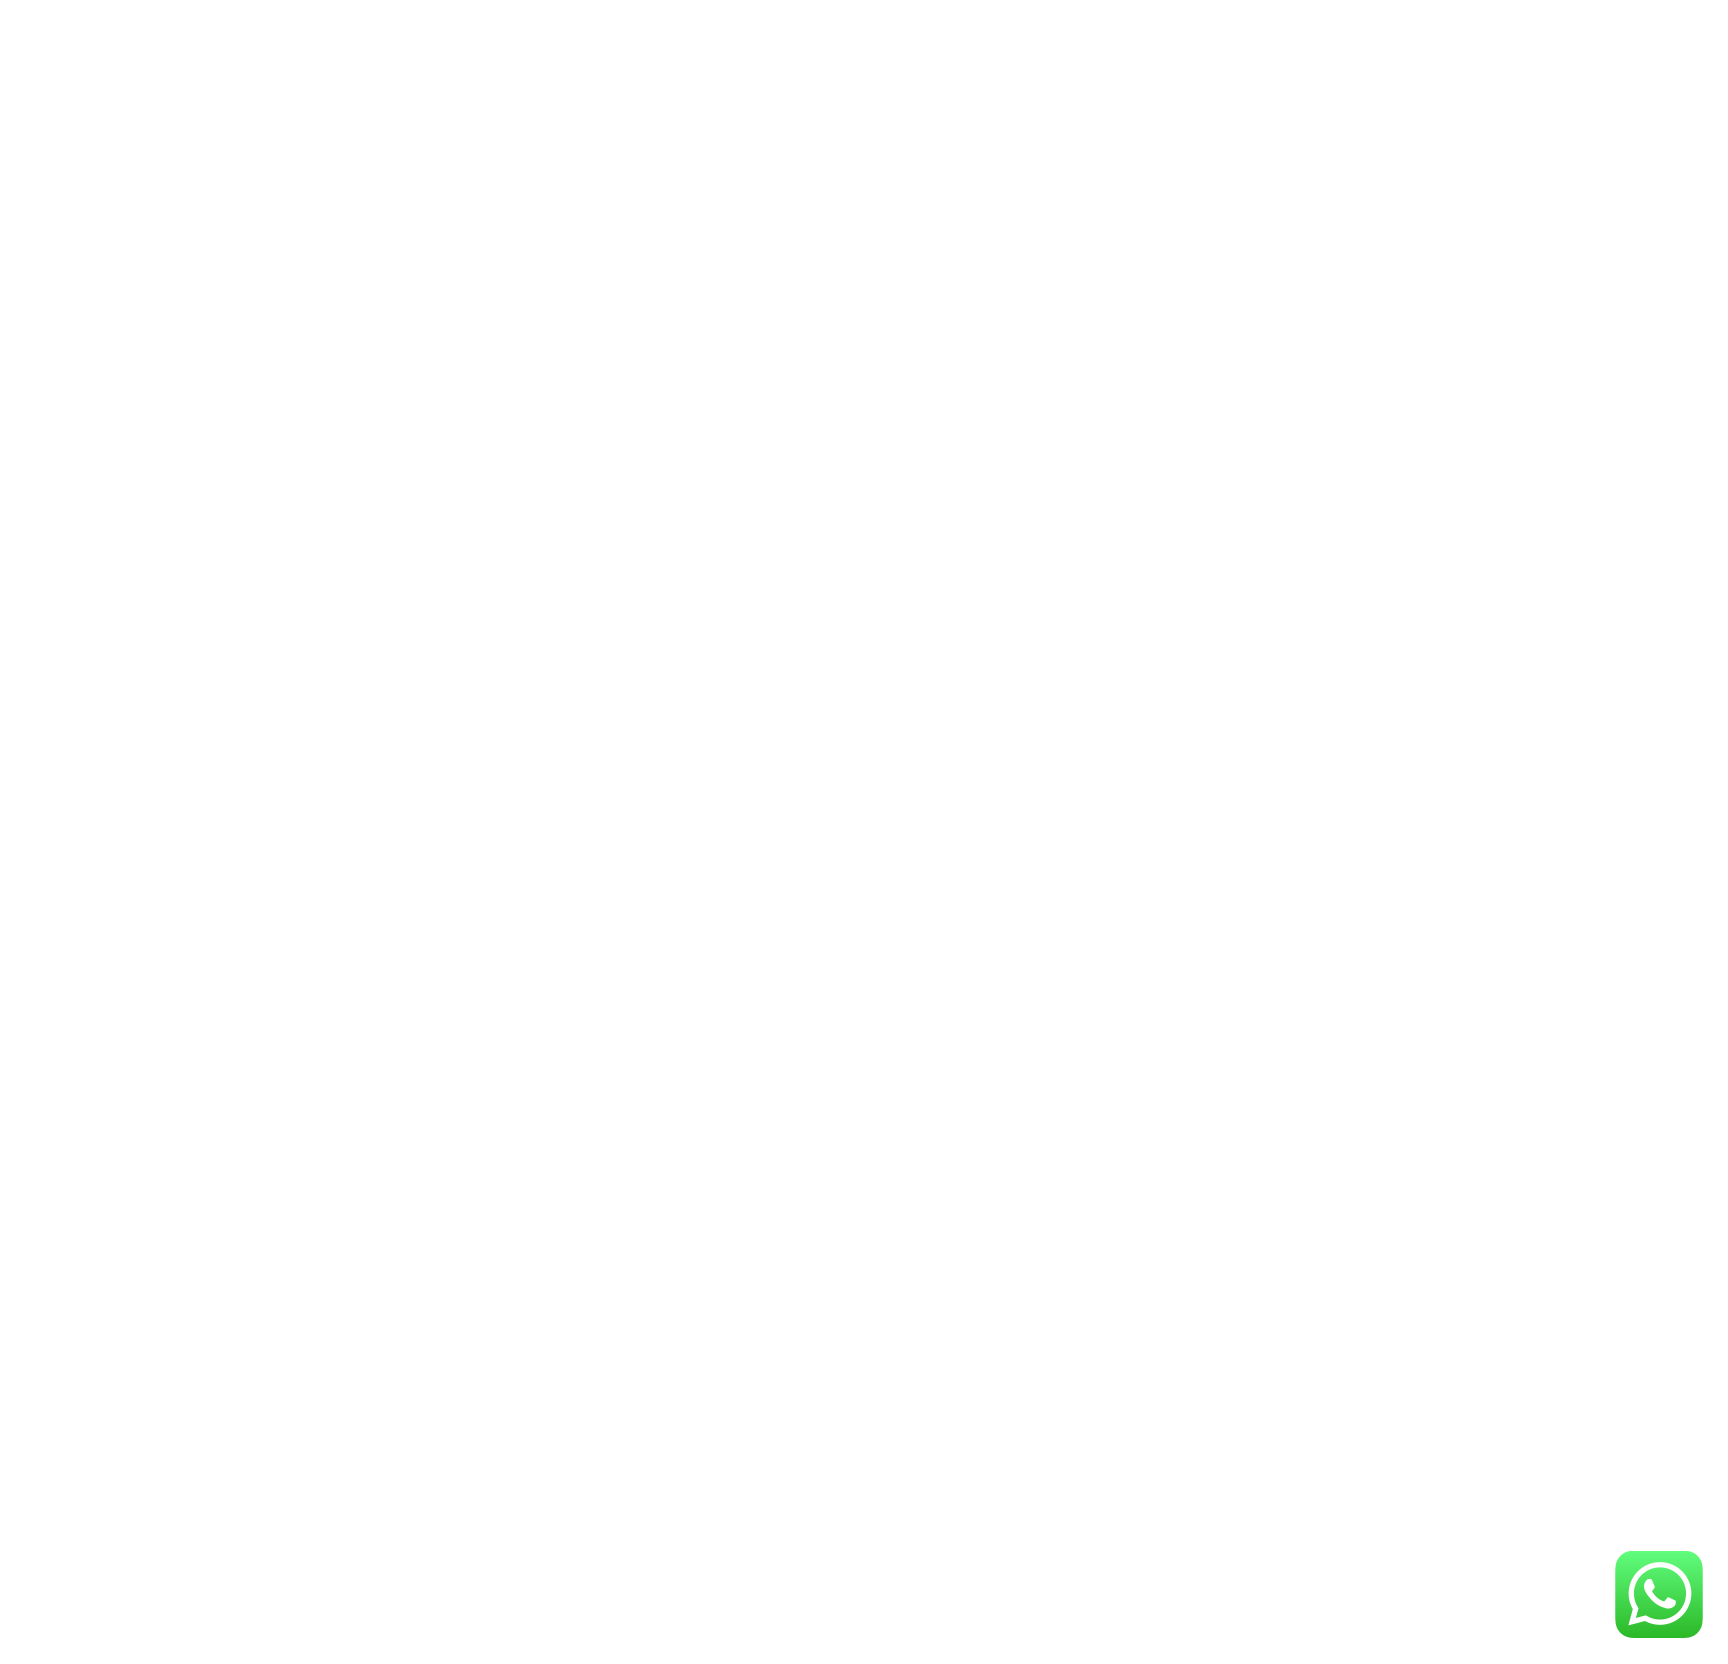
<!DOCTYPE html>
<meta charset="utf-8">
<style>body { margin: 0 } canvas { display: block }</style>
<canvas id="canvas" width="1728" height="1664"></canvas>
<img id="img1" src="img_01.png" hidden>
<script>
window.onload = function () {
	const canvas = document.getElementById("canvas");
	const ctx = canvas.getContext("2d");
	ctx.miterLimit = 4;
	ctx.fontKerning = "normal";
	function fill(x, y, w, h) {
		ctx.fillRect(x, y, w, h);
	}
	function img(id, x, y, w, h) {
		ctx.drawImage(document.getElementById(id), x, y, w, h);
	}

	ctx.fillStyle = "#FFFFFF";
	fill(0, 0, 1728, 1664);
	img("img1", 1615, 1551, 88, 87);
};
</script>
